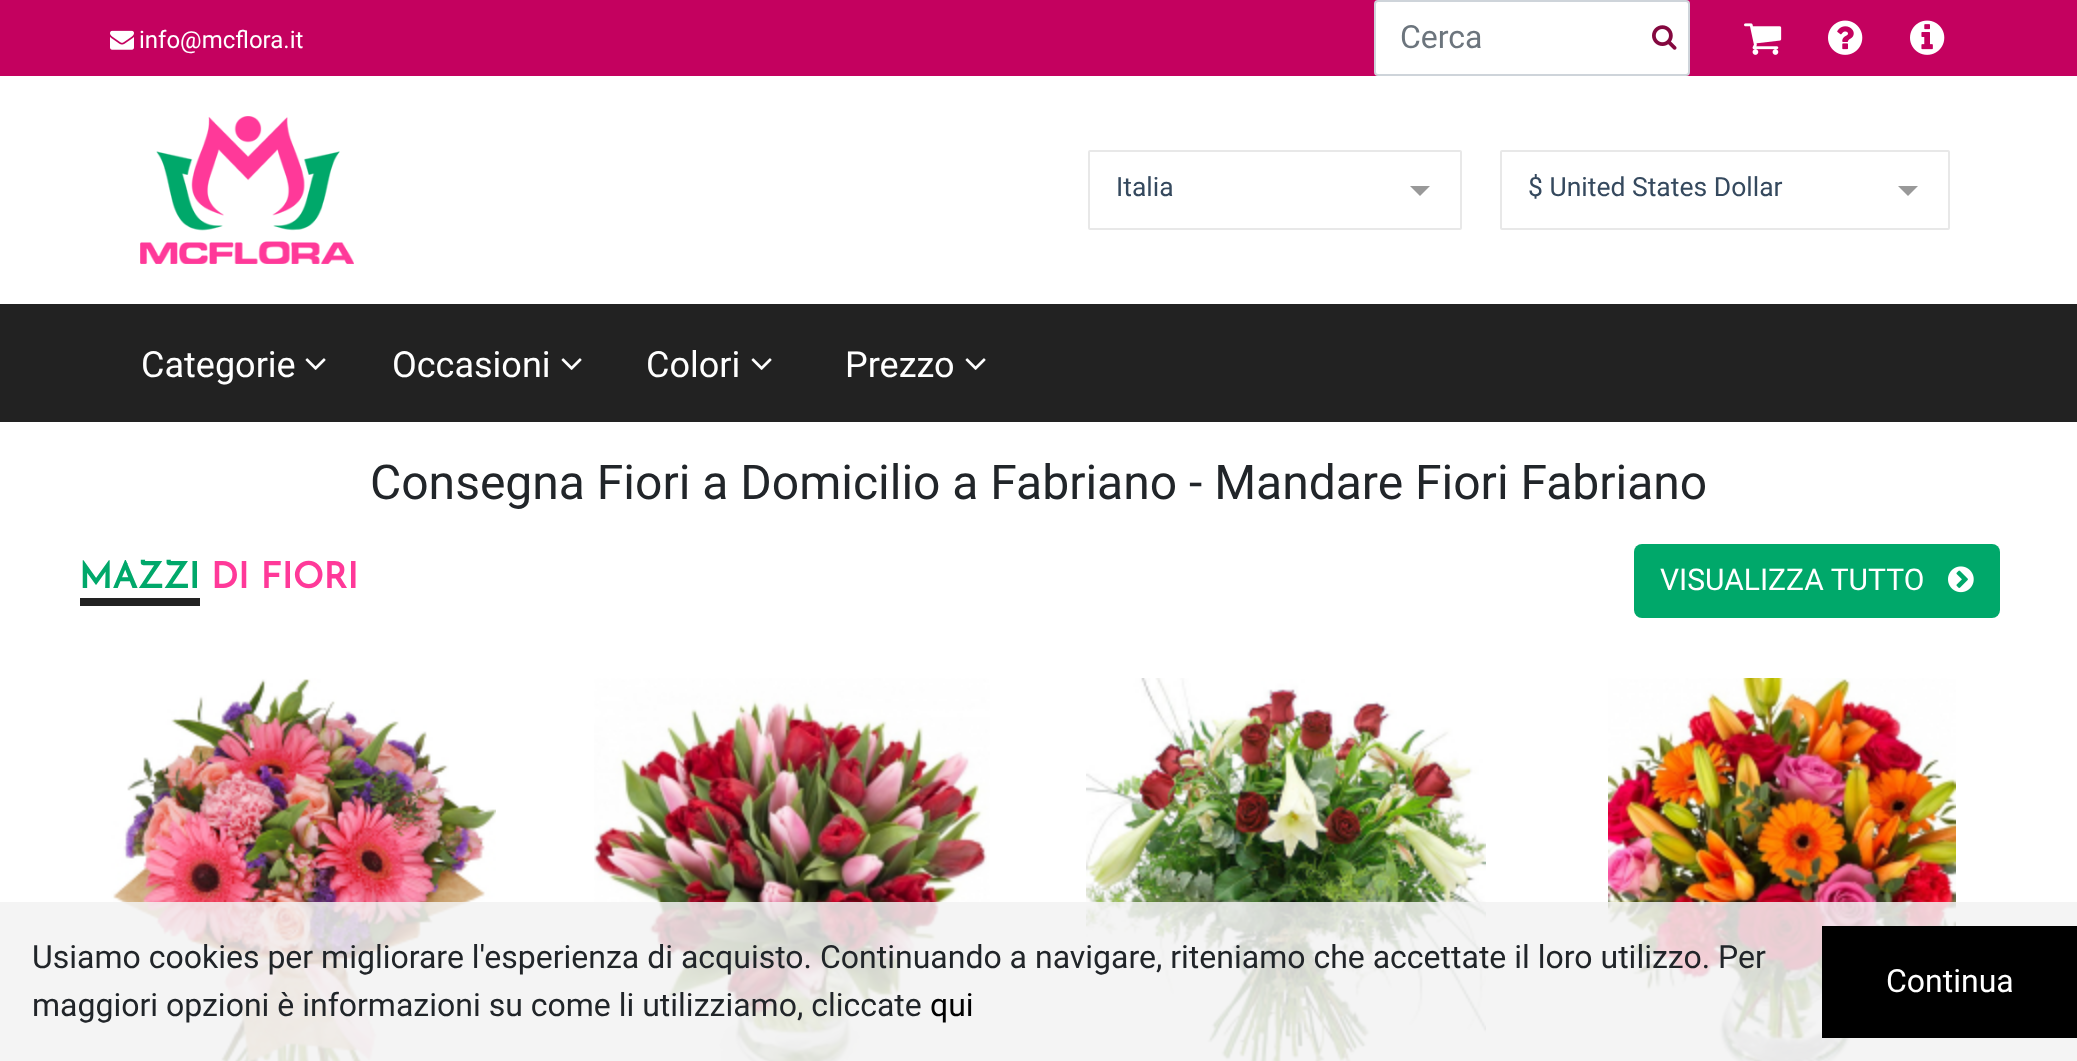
<!DOCTYPE html>
<meta charset="utf-8">
<style>body { margin: 0 } canvas { display: block }</style>
<canvas id="canvas" width="2077" height="1061"></canvas>
<img id="img1" src="img_01.png" hidden>
<img id="img2" src="img_02.png" hidden>
<img id="img3" src="img_03.png" hidden>
<img id="img4" src="img_04.png" hidden>
<img id="img5" src="img_05.png" hidden>
<img id="img6" src="img_06.png" hidden>
<img id="img7" src="img_07.png" hidden>
<img id="img8" src="img_08.png" hidden>
<img id="img9" src="img_09.png" hidden>
<img id="img10" src="img_10.png" hidden>
<img id="img11" src="img_11.png" hidden>
<img id="img12" src="img_12.png" hidden>
<script>
window.onload = function () {
	const canvas = document.getElementById("canvas");
	const ctx = canvas.getContext("2d");
	ctx.miterLimit = 4;
	ctx.fontKerning = "normal";
	function txt(s, x, y) {
		ctx.fillText(s, x, y);
	}
	function fill(x, y, w, h) {
		ctx.fillRect(x, y, w, h);
	}
	function round(x, y, w, h, r) {
		ctx.beginPath();
		ctx.roundRect(x, y, w, h, r);
		ctx.fill();
	}
	function img(id, x, y, w, h) {
		ctx.drawImage(document.getElementById(id), x, y, w, h);
	}

	ctx.fillStyle = "#FFFFFF";
	fill(0, 0, 2077, 1061);
	ctx.fillStyle = "#C4015F";
	fill(0, 0, 2077, 76);
	img("img1", 110, 30, 24, 20);
	ctx.fillStyle = "#FFFFFF";
	ctx.beginPath();
	ctx.roundRect(1375, 1, 314, 74, 3);
	ctx.fill();
	ctx.strokeStyle = "#CED4DA";
	ctx.lineWidth = 2;
	ctx.stroke();
	img("img2", 1652, 25, 25, 25);
	img("img3", 1744, 23, 38, 32);
	img("img4", 1828, 20, 35, 35);
	img("img5", 1910, 20, 35, 35);
	img("img6", 140, 116, 214, 148);
	ctx.beginPath();
	ctx.roundRect(1089, 151, 372, 78, 1);
	ctx.strokeStyle = "#E8E8E8";
	ctx.stroke();
	ctx.fillStyle = "#999999";
	ctx.beginPath();
	ctx.moveTo(1410, 186);
	ctx.lineTo(1430, 186);
	ctx.lineTo(1420, 196);
	ctx.closePath();
	ctx.fill();
	ctx.beginPath();
	ctx.roundRect(1501, 151, 448, 78, 1);
	ctx.stroke();
	ctx.beginPath();
	ctx.moveTo(1898, 186);
	ctx.lineTo(1918, 186);
	ctx.lineTo(1908, 196);
	ctx.closePath();
	ctx.fill();
	ctx.fillStyle = "#222222";
	fill(0, 304, 2077, 118);
	img("img7", 305, 358, 21, 12);
	img("img7", 561, 358, 21, 12);
	img("img7", 751, 358, 21, 12);
	img("img7", 965, 358, 21, 12);
	fill(80, 598, 120, 8);
	ctx.fillStyle = "#00A86A";
	round(1634, 544, 366, 74, 8);
	img("img8", 1948, 566, 26, 27);
	img("img9", 96, 678, 400, 383);
	img("img10", 594, 678, 396, 383);
	img("img11", 1086, 678, 400, 383);
	img("img12", 1608, 678, 348, 383);
	ctx.fillStyle = "rgba(242, 242, 242, 0.85)";
	fill(0, 902, 2077, 159);
	ctx.fillStyle = "#000000";
	fill(1822, 926, 255, 112);
	ctx.font = "24px Roboto";
	ctx.fillStyle = "#FFFFFF";
	txt("info@mcflora.it", 139, 48);
	ctx.font = "32px Roboto";
	ctx.fillStyle = "#6C757D";
	txt("Cerca", 1400, 48);
	ctx.font = "26.5px Roboto";
	ctx.fillStyle = "#35495E";
	txt("Italia", 1116, 196);
	txt("$ United States Dollar", 1528, 196);
	ctx.font = "36px Roboto";
	ctx.fillStyle = "#FFFFFF";
	txt("Categorie", 141, 377);
	txt("Occasioni", 392, 377);
	txt("Colori", 646, 377);
	txt("Prezzo", 845, 377);
	ctx.font = "48px Roboto";
	ctx.fillStyle = "#212529";
	txt("Consegna Fiori a Domicilio a Fabriano - Mandare Fiori Fabriano", 370, 499);
	ctx.font = "bold 36px Josefin Sans";
	ctx.fillStyle = "#00A86A";
	txt("MAZZI", 79, 588);
	ctx.fillStyle = "#FF3999";
	txt("DI FIORI", 211, 588);
	ctx.font = "30px Roboto";
	ctx.fillStyle = "#FFFFFF";
	txt("VISUALIZZA TUTTO", 1660, 590);
	ctx.font = "32px Roboto";
	ctx.fillStyle = "#212529";
	txt("Usiamo cookies per migliorare l'esperienza di acquisto. Continuando a navigare, riteniamo che accettate il loro utilizzo. Per", 32, 968);
	txt("maggiori opzioni è informazioni su come li utilizziamo, cliccate", 32, 1016);
	ctx.fillStyle = "#000000";
	txt("qui", 930, 1016);
	ctx.fillStyle = "#FFFFFF";
	txt("Continua", 1886, 992);
};
</script>
